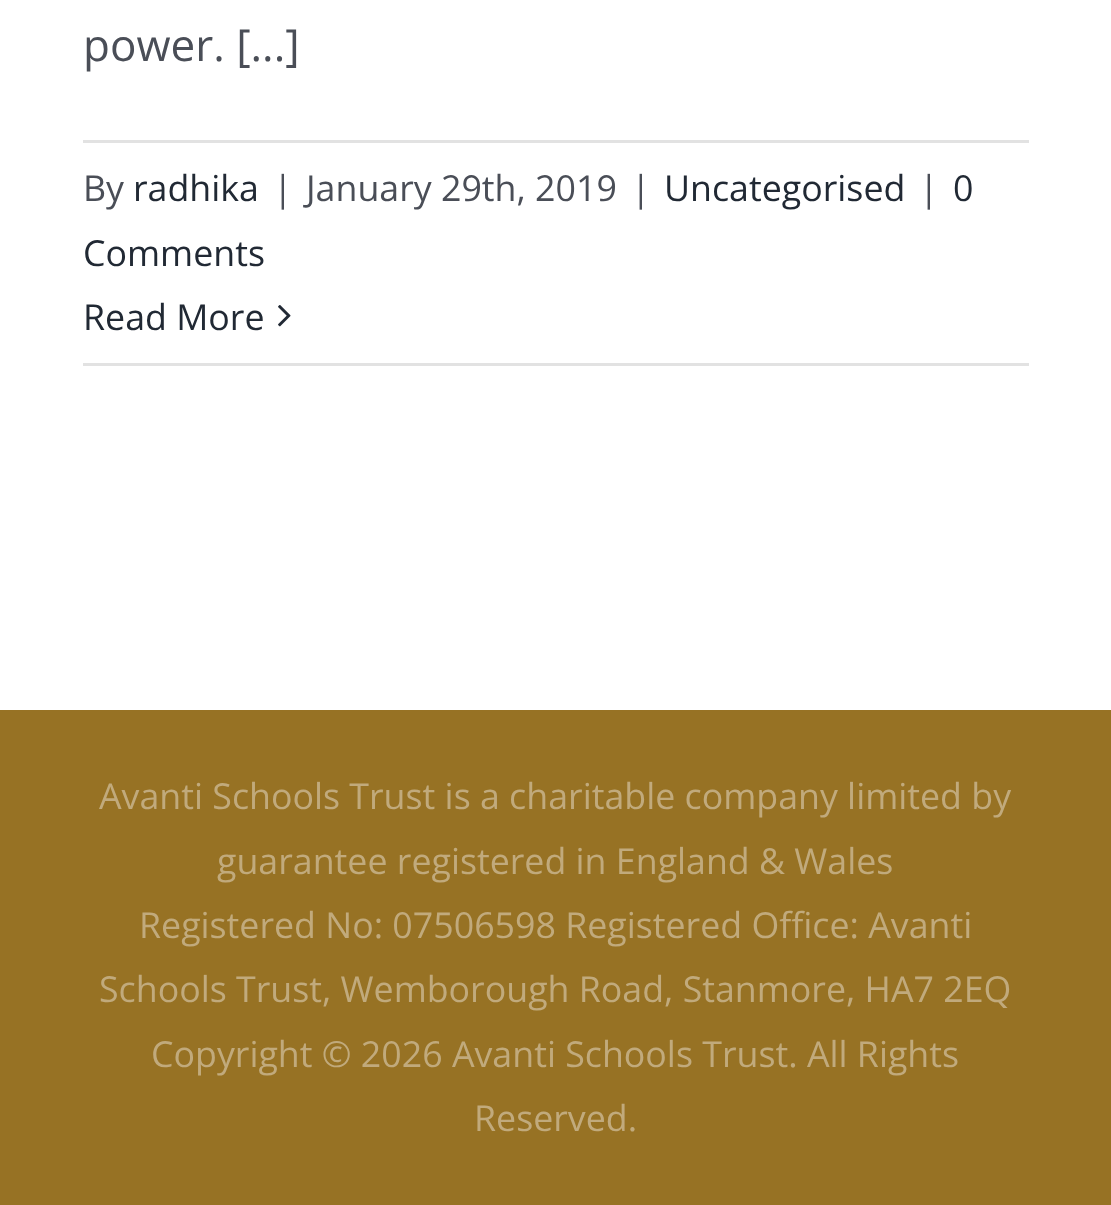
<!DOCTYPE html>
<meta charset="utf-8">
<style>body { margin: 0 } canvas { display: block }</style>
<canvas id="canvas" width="1111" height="1205"></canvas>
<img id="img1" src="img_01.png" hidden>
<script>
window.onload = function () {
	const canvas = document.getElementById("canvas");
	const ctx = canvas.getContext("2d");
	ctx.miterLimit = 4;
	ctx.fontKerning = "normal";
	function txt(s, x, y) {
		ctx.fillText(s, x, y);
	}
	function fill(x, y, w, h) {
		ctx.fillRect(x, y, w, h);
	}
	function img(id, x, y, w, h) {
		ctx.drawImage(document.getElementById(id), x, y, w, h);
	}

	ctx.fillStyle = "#FFFFFF";
	fill(0, 0, 1111, 1205);
	ctx.fillStyle = "#E2E2E2";
	fill(83, 140, 946, 3);
	fill(83, 363, 946, 3);
	img("img1", 278, 305, 13, 22);
	ctx.fillStyle = "#977224";
	fill(0, 710, 1111, 495);
	ctx.font = "44px Open Sans";
	ctx.fillStyle = "#4A4E57";
	txt("power. [...]", 83, 61);
	ctx.font = "35.75px Open Sans";
	txt("By", 83, 201);
	ctx.fillStyle = "#212934";
	txt("radhika", 133, 201);
	ctx.fillStyle = "#4A4E57";
	txt("|", 273, 201);
	txt("January 29th, 2019", 306, 201);
	txt("|", 631, 201);
	ctx.fillStyle = "#212934";
	txt("Uncategorised", 664, 201);
	ctx.fillStyle = "#4A4E57";
	txt("|", 919, 201);
	ctx.fillStyle = "#212934";
	txt("0", 953, 201);
	txt("Comments", 83, 266);
	txt("Read More", 83, 330);
	ctx.fillStyle = "#C1AA7C";
	txt("Avanti Schools Trust is a charitable company limited by", 99, 809);
	txt("guarantee registered in England & Wales", 217, 874);
	txt("Registered No: 07506598 Registered Office: Avanti", 139, 938);
	txt("Schools Trust, Wemborough Road, Stanmore, HA7 2EQ", 99, 1002);
	txt("Copyright © 2026 Avanti Schools Trust. All Rights", 151, 1067);
	txt("Reserved.", 474, 1131);
};
</script>
